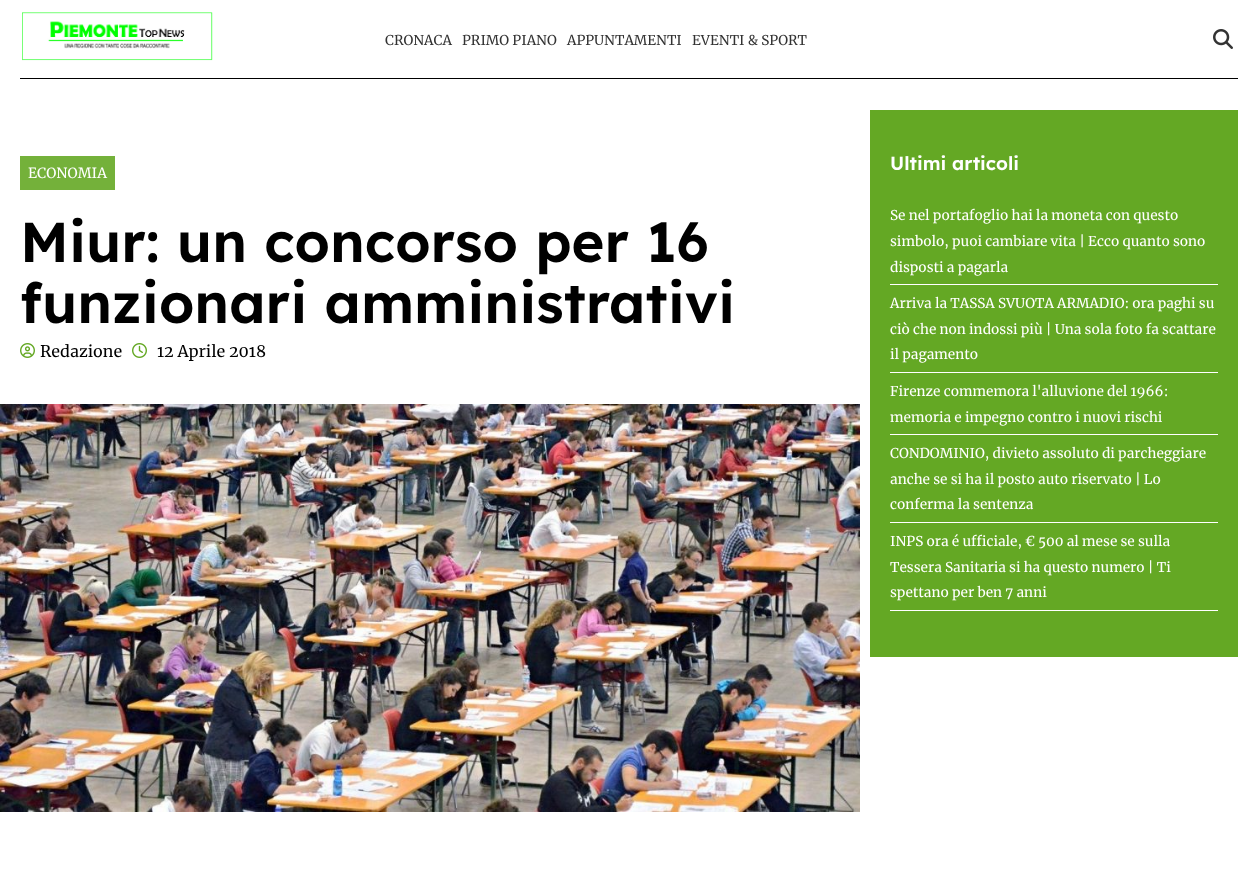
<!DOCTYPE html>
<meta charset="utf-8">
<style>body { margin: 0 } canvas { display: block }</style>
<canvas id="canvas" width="1258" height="883"></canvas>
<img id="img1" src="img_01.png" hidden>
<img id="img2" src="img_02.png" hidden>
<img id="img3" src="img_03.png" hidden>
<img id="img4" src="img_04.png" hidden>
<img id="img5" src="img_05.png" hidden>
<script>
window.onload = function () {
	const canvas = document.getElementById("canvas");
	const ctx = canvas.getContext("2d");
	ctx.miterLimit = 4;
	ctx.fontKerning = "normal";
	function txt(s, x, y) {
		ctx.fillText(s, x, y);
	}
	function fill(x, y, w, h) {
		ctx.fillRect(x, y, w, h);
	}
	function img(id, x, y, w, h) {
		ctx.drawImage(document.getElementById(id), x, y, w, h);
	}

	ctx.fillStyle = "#FFFFFF";
	fill(0, 0, 1258, 883);
	ctx.fillStyle = "#000000";
	fill(20, 78, 1218, 1);
	img("img1", 22, 12, 191, 49);
	img("img2", 1213, 29, 20, 20);
	ctx.fillStyle = "#74B13A";
	fill(20, 156, 95, 34);
	img("img3", 20, 343, 15, 15);
	img("img4", 132, 343, 15, 15);
	img("img5", 0, 404, 860, 408);
	ctx.fillStyle = "#64A824";
	fill(870, 110, 368, 547);
	ctx.fillStyle = "#FFFFFF";
	fill(890, 284, 328, 1);
	fill(890, 372, 328, 1);
	fill(890, 434, 328, 1);
	fill(890, 522, 328, 1);
	fill(890, 610, 328, 1);
	ctx.font = "13.6px Merriweather";
	ctx.fillStyle = "#333333";
	txt("CRONACA", 385, 45);
	txt("PRIMO PIANO", 462, 45);
	txt("APPUNTAMENTI", 567, 45);
	txt("EVENTI & SPORT", 692, 45);
	ctx.font = "14px Merriweather";
	ctx.fillStyle = "#FFFFFF";
	txt("ECONOMIA", 28, 178);
	ctx.font = "600 56px Lexend";
	ctx.fillStyle = "#000000";
	txt("Miur: un concorso per 16", 20, 262);
	txt("funzionari amministrativi", 20, 323);
	ctx.font = "16px Merriweather";
	txt("Redazione", 40, 357);
	txt("12 Aprile 2018", 157, 357);
	ctx.font = "600 18.75px Lexend";
	ctx.fillStyle = "#FFFFFF";
	txt("Ultimi articoli", 890, 170);
	ctx.font = "13.6px Merriweather";
	txt("Se nel portafoglio hai la moneta con questo", 890, 220);
	txt("simbolo, puoi cambiare vita | Ecco quanto sono", 890, 246);
	txt("disposti a pagarla", 890, 272);
	txt("Arriva la TASSA SVUOTA ARMADIO: ora paghi su", 890, 308);
	txt("ciò che non indossi più | Una sola foto fa scattare", 890, 334);
	txt("il pagamento", 890, 359);
	txt("Firenze commemora l'alluvione del 1966:", 890, 396);
	txt("memoria e impegno contro i nuovi rischi", 890, 422);
	txt("CONDOMINIO, divieto assoluto di parcheggiare", 890, 458);
	txt("anche se si ha il posto auto riservato | Lo", 890, 484);
	txt("conferma la sentenza", 890, 509);
	txt("INPS ora é ufficiale, € 500 al mese se sulla", 890, 546);
	txt("Tessera Sanitaria si ha questo numero | Ti", 890, 572);
	txt("spettano per ben 7 anni", 890, 597);
};
</script>
